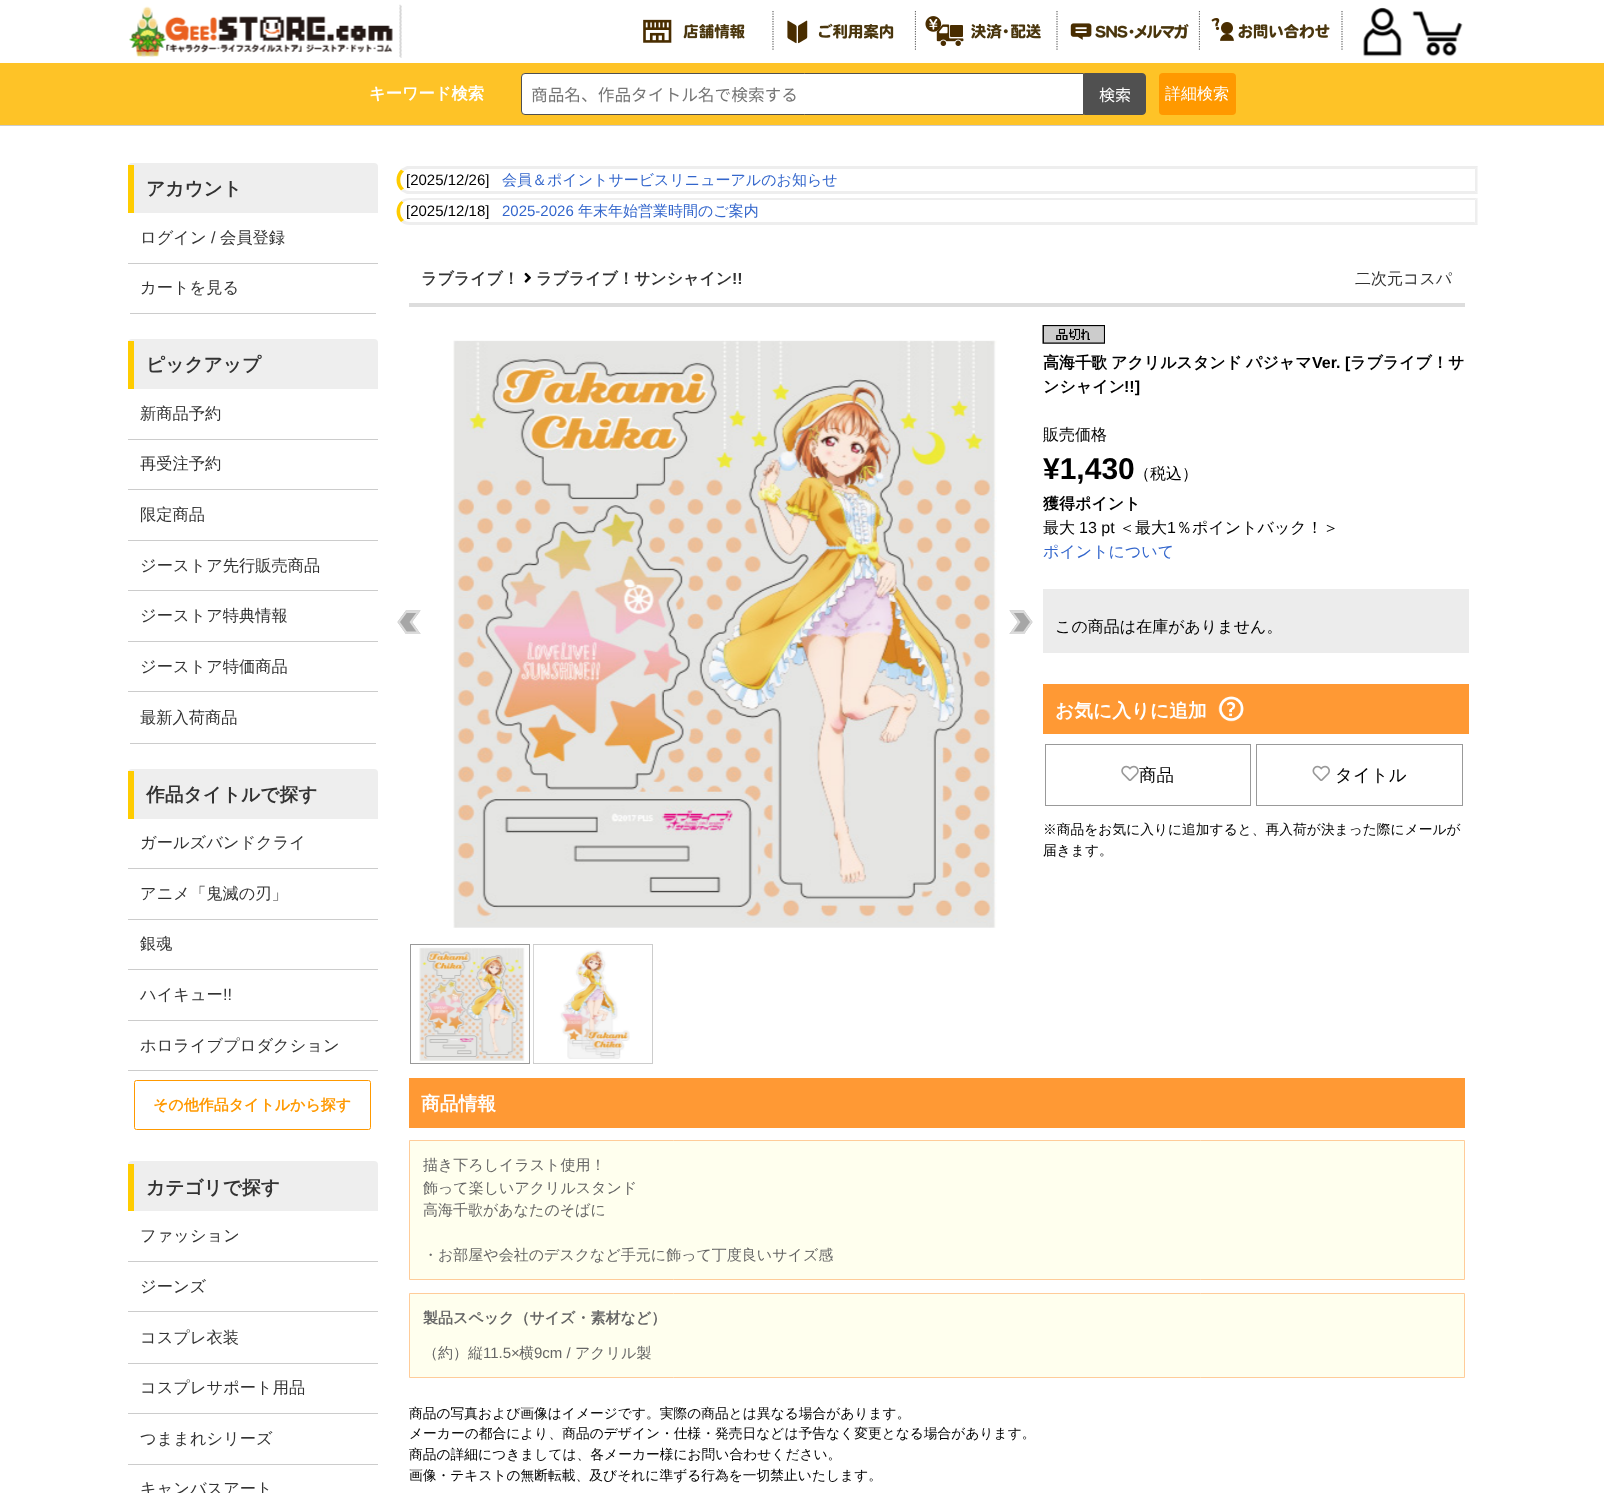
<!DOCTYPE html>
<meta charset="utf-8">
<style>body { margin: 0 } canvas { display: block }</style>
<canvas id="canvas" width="1604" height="1493"></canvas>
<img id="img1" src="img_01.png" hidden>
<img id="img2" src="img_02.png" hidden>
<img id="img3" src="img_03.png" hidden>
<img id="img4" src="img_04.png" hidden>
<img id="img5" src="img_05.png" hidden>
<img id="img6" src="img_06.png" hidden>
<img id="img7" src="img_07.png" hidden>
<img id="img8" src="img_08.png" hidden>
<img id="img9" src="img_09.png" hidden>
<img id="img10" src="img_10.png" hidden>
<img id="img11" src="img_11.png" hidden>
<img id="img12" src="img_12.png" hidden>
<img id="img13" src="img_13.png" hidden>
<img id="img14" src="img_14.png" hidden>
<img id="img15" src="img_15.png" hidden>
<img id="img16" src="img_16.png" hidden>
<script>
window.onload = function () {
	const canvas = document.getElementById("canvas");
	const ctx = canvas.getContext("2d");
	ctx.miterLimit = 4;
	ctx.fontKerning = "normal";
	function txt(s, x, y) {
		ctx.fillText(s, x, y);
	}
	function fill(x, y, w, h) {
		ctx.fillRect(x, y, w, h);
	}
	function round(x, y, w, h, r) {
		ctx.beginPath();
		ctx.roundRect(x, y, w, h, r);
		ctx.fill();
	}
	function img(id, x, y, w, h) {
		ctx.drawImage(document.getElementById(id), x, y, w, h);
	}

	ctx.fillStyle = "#FFFFFF";
	fill(0, 0, 1604, 1493);
	ctx.fillStyle = "#CCCCCC";
	fill(0, 125, 1604, 1);
	img("img1", 129, 4, 273, 54);
	ctx.beginPath();
	ctx.moveTo(773, 11);
	ctx.lineTo(773, 51);
	ctx.strokeStyle = "#666666";
	ctx.lineWidth = 1.2;
	ctx.setLineDash([1.25, 1.25]);
	ctx.stroke();
	img("img2", 643, 19, 102, 24);
	ctx.beginPath();
	ctx.moveTo(915.5, 11);
	ctx.lineTo(915.5, 51);
	ctx.stroke();
	img("img3", 787, 20, 107, 24);
	ctx.fillStyle = "#FFFFFF";
	fill(916, 11, 1, 39);
	ctx.beginPath();
	ctx.moveTo(1057, 11);
	ctx.lineTo(1057, 51);
	ctx.stroke();
	img("img4", 925, 16, 116, 30);
	ctx.beginPath();
	ctx.moveTo(1199.5, 11);
	ctx.lineTo(1199.5, 51);
	ctx.stroke();
	img("img5", 1070, 23, 119, 17);
	fill(1200, 11, 1, 39);
	ctx.beginPath();
	ctx.moveTo(1342, 11);
	ctx.lineTo(1342, 51);
	ctx.stroke();
	img("img6", 1211, 18, 119, 23);
	img("img7", 1363, 7, 39, 50);
	img("img8", 1412, 11, 51, 46);
	ctx.fillStyle = "#FEC327";
	fill(0, 63, 1604, 62);
	ctx.fillStyle = "#FFFFFF";
	ctx.beginPath();
	ctx.roundRect(521.5, 73.5, 562, 41, [3.5, 0, 0, 3.5]);
	ctx.fill();
	ctx.strokeStyle = "#505050";
	ctx.lineWidth = 1;
	ctx.setLineDash([]);
	ctx.stroke();
	ctx.fillStyle = "#505050";
	ctx.beginPath();
	ctx.roundRect(1084.5, 73.5, 61, 41, [0, 3.5, 3.5, 0]);
	ctx.fill();
	ctx.stroke();
	ctx.fillStyle = "#FF9900";
	round(1159, 73, 77, 42, 4);
	ctx.fillStyle = "#EEEEEE";
	ctx.beginPath();
	ctx.roundRect(128, 163, 250, 50, [4, 4, 0, 0]);
	ctx.fill();
	ctx.fillStyle = "#FFCC00";
	fill(128, 165, 6, 48);
	ctx.fillStyle = "#CCCCCC";
	fill(128, 263, 250, 1);
	fill(130, 313, 246, 1);
	ctx.fillStyle = "#EEEEEE";
	ctx.beginPath();
	ctx.roundRect(128, 339, 250, 50, [4, 4, 0, 0]);
	ctx.fill();
	ctx.fillStyle = "#FFCC00";
	fill(128, 341, 6, 48);
	ctx.fillStyle = "#CCCCCC";
	fill(128, 439, 250, 1);
	fill(128, 489, 250, 1);
	fill(128, 540, 250, 1);
	fill(128, 590, 250, 1);
	fill(128, 641, 250, 1);
	fill(128, 691, 250, 1);
	fill(130, 743, 246, 1);
	ctx.fillStyle = "#EEEEEE";
	ctx.beginPath();
	ctx.roundRect(128, 769, 250, 50, [4, 4, 0, 0]);
	ctx.fill();
	ctx.fillStyle = "#FFCC00";
	fill(128, 771, 6, 48);
	ctx.fillStyle = "#CCCCCC";
	fill(128, 868, 250, 1);
	fill(128, 919, 250, 1);
	fill(128, 969, 250, 1);
	fill(128, 1020, 250, 1);
	fill(128, 1070, 250, 1);
	ctx.beginPath();
	ctx.roundRect(134.5, 1080.5, 236, 49, 2);
	ctx.strokeStyle = "#FF9900";
	ctx.stroke();
	ctx.fillStyle = "#EEEEEE";
	ctx.beginPath();
	ctx.roundRect(128, 1161, 250, 50, [4, 4, 0, 0]);
	ctx.fill();
	ctx.fillStyle = "#FFCC00";
	fill(128, 1164, 6, 47);
	ctx.fillStyle = "#CCCCCC";
	fill(128, 1261, 250, 1);
	fill(128, 1311, 250, 1);
	fill(128, 1363, 250, 1);
	fill(128, 1413, 250, 1);
	fill(128, 1464, 250, 1);
	ctx.fillStyle = "#EEEEEE";
	ctx.beginPath();
	ctx.moveTo(410, 169);
	ctx.bezierCurveTo(407, 169, 405, 170, 404, 171);
	ctx.lineTo(401, 169);
	ctx.bezierCurveTo(403, 168, 405, 167, 407, 166);
	ctx.lineTo(1478, 166);
	ctx.lineTo(1475, 169);
	ctx.closePath();
	ctx.fill();
	ctx.beginPath();
	ctx.moveTo(1477.5, 166);
	ctx.lineTo(1475, 169);
	ctx.lineTo(1475, 191);
	ctx.lineTo(1477.5, 194);
	ctx.closePath();
	ctx.fill();
	ctx.beginPath();
	ctx.moveTo(1478, 194);
	ctx.lineTo(407, 194);
	ctx.bezierCurveTo(405, 193, 403, 192, 401, 191);
	ctx.lineTo(404, 189);
	ctx.bezierCurveTo(405, 190, 407, 191, 410, 191);
	ctx.lineTo(1475, 191);
	ctx.closePath();
	ctx.fill();
	ctx.fillStyle = "#FFCC00";
	ctx.beginPath();
	ctx.moveTo(401, 190.5);
	ctx.bezierCurveTo(395, 185.5, 395, 174.5, 401, 169.5);
	ctx.lineTo(404, 171.5);
	ctx.bezierCurveTo(399, 175.5, 399, 184.5, 404, 188.5);
	ctx.closePath();
	ctx.fill();
	ctx.fillStyle = "#EEEEEE";
	ctx.beginPath();
	ctx.moveTo(410, 198);
	ctx.bezierCurveTo(406, 198, 403, 199, 401, 201);
	ctx.lineTo(404, 202);
	ctx.bezierCurveTo(405, 201, 407, 200, 410, 200);
	ctx.lineTo(1475, 200);
	ctx.lineTo(1477, 198);
	ctx.closePath();
	ctx.fill();
	ctx.beginPath();
	ctx.moveTo(1477.5, 198);
	ctx.lineTo(1477.5, 225);
	ctx.lineTo(1474.5, 222);
	ctx.lineTo(1475, 222);
	ctx.lineTo(1475, 200);
	ctx.lineTo(1477, 198);
	ctx.closePath();
	ctx.fill();
	ctx.beginPath();
	ctx.moveTo(1478, 225);
	ctx.lineTo(1474, 222);
	ctx.lineTo(410, 222);
	ctx.bezierCurveTo(407, 222, 405, 221, 404, 220);
	ctx.lineTo(401, 222);
	ctx.bezierCurveTo(403, 224, 406, 225, 410, 225);
	ctx.closePath();
	ctx.fill();
	ctx.fillStyle = "#FFCC00";
	ctx.beginPath();
	ctx.moveTo(401.5, 201);
	ctx.bezierCurveTo(395, 206, 395, 216.5, 401, 222);
	ctx.lineTo(404, 220);
	ctx.bezierCurveTo(399, 216, 399, 206.5, 403.5, 202.5);
	ctx.closePath();
	ctx.fill();
	ctx.fillStyle = "#DDDDDD";
	fill(409, 303, 1056, 4);
	img("img9", 524, 272, 7, 11);
	img("img10", 453, 340, 544, 588);
	ctx.fillStyle = "#A6A6A6";
	ctx.beginPath();
	ctx.moveTo(406, 610.5);
	ctx.lineTo(420.5, 610.5);
	ctx.lineTo(412, 622);
	ctx.lineTo(397.5, 622);
	ctx.closePath();
	ctx.fill();
	ctx.fillStyle = "#DBDBDB";
	ctx.beginPath();
	ctx.moveTo(406, 610.5);
	ctx.lineTo(420.5, 610.5);
	ctx.lineTo(418.5, 613);
	ctx.lineTo(404.5, 613);
	ctx.closePath();
	ctx.fill();
	ctx.beginPath();
	ctx.moveTo(418, 610.5);
	ctx.lineTo(420.5, 610.5);
	ctx.lineTo(412, 622);
	ctx.lineTo(409.5, 622);
	ctx.closePath();
	ctx.moveTo(406, 610.5);
	ctx.lineTo(408.5, 610.5);
	ctx.lineTo(400, 622);
	ctx.lineTo(397.5, 622);
	ctx.closePath();
	ctx.fill();
	ctx.fillStyle = "#A6A6A6";
	ctx.beginPath();
	ctx.moveTo(397.5, 622);
	ctx.lineTo(412, 622);
	ctx.lineTo(420.5, 634);
	ctx.lineTo(406, 634);
	ctx.closePath();
	ctx.fill();
	ctx.fillStyle = "#DBDBDB";
	ctx.beginPath();
	ctx.moveTo(409.5, 622);
	ctx.lineTo(412, 622);
	ctx.lineTo(420.5, 634);
	ctx.lineTo(418, 634);
	ctx.closePath();
	ctx.fill();
	ctx.beginPath();
	ctx.moveTo(404.5, 631.5);
	ctx.lineTo(418.5, 631.5);
	ctx.lineTo(420.5, 634);
	ctx.lineTo(406, 634);
	ctx.closePath();
	ctx.fill();
	ctx.beginPath();
	ctx.moveTo(397.5, 622);
	ctx.lineTo(400, 622);
	ctx.lineTo(408.5, 634);
	ctx.lineTo(406, 634);
	ctx.closePath();
	ctx.fill();
	ctx.fillStyle = "#A6A6A6";
	ctx.beginPath();
	ctx.moveTo(1009.5, 610.5);
	ctx.lineTo(1024, 610.5);
	ctx.lineTo(1032.5, 622);
	ctx.lineTo(1018, 622);
	ctx.closePath();
	ctx.fill();
	ctx.fillStyle = "#DBDBDB";
	ctx.beginPath();
	ctx.moveTo(1009.5, 610.5);
	ctx.lineTo(1024, 610.5);
	ctx.lineTo(1026, 613);
	ctx.lineTo(1011.5, 613);
	ctx.closePath();
	ctx.fill();
	ctx.beginPath();
	ctx.moveTo(1021.5, 610.5);
	ctx.lineTo(1024, 610.5);
	ctx.lineTo(1032.5, 622);
	ctx.lineTo(1030, 622);
	ctx.closePath();
	ctx.moveTo(1009.5, 610.5);
	ctx.lineTo(1012, 610.5);
	ctx.lineTo(1020.5, 622);
	ctx.lineTo(1018, 622);
	ctx.closePath();
	ctx.fill();
	ctx.fillStyle = "#A6A6A6";
	ctx.beginPath();
	ctx.moveTo(1018, 622);
	ctx.lineTo(1032.5, 622);
	ctx.lineTo(1024, 634);
	ctx.lineTo(1009.5, 634);
	ctx.closePath();
	ctx.fill();
	ctx.fillStyle = "#DBDBDB";
	ctx.beginPath();
	ctx.moveTo(1030, 622);
	ctx.lineTo(1032.5, 622);
	ctx.lineTo(1024, 634);
	ctx.lineTo(1021.5, 634);
	ctx.closePath();
	ctx.fill();
	ctx.beginPath();
	ctx.moveTo(1011.5, 631.5);
	ctx.lineTo(1026, 631.5);
	ctx.lineTo(1024, 634);
	ctx.lineTo(1009.5, 634);
	ctx.closePath();
	ctx.fill();
	ctx.beginPath();
	ctx.moveTo(1018, 622);
	ctx.lineTo(1020.5, 622);
	ctx.lineTo(1012, 634);
	ctx.lineTo(1009.5, 634);
	ctx.closePath();
	ctx.fill();
	ctx.strokeStyle = "#999999";
	ctx.strokeRect(410.5, 944.5, 119, 119);
	img("img11", 419, 945, 111, 117);
	ctx.strokeStyle = "#CCCCCC";
	ctx.strokeRect(533.5, 944.5, 119, 119);
	img("img12", 533, 945, 97, 117);
	img("img13", 1042, 325, 63, 19);
	ctx.fillStyle = "#ECECEC";
	fill(1043, 589, 426, 64);
	ctx.fillStyle = "#FF9934";
	fill(1043, 684, 426, 50);
	img("img14", 1218, 696, 26, 26);
	ctx.strokeStyle = "#999999";
	ctx.strokeRect(1045.5, 744.5, 205, 61);
	img("img15", 1121, 765, 18, 16);
	ctx.strokeRect(1256.5, 744.5, 206, 61);
	img("img16", 1312, 765, 18, 16);
	fill(409, 1078, 1056, 50);
	ctx.fillStyle = "#FFFFEE";
	ctx.beginPath();
	ctx.rect(409.5, 1140.5, 1055, 139);
	ctx.fill();
	ctx.strokeStyle = "#FFCC99";
	ctx.stroke();
	ctx.beginPath();
	ctx.rect(409.5, 1293.5, 1055, 84);
	ctx.fill();
	ctx.stroke();
	ctx.font = "bold 16.25px WenQuanYi Zen Hei";
	ctx.fillStyle = "#FFFFFF";
	txt("キーワード検索", 369, 99);
	ctx.font = "16.7px Noto Sans JP";
	ctx.fillStyle = "#757575";
	txt("商品名、作品タイトル名で検索する", 531, 101);
	ctx.font = "16px Noto Sans JP";
	ctx.fillStyle = "#FFFFFF";
	txt("検索", 1099, 101);
	ctx.font = "500 16px WenQuanYi Zen Hei";
	txt("詳細検索", 1165, 99);
	ctx.font = "bold 18.75px WenQuanYi Zen Hei";
	ctx.fillStyle = "#333333";
	txt("アカウント", 146, 195);
	ctx.font = "500 16.25px WenQuanYi Zen Hei";
	txt("ログイン", 140, 243);
	ctx.font = "16.25px Liberation Sans";
	txt("/", 211, 243);
	ctx.font = "500 16.25px WenQuanYi Zen Hei";
	txt("会員登録", 220, 243);
	txt("カートを見る", 140, 293);
	ctx.font = "bold 18.75px WenQuanYi Zen Hei";
	txt("ピックアップ", 146, 371);
	ctx.font = "500 16.25px WenQuanYi Zen Hei";
	txt("新商品予約", 140, 419);
	txt("再受注予約", 140, 469);
	txt("限定商品", 140, 520);
	txt("ジーストア先行販売商品", 140, 571);
	txt("ジーストア特典情報", 140, 621);
	txt("ジーストア特価商品", 140, 672);
	txt("最新入荷商品", 140, 723);
	ctx.font = "bold 18.75px WenQuanYi Zen Hei";
	txt("作品タイトルで探す", 146, 801);
	ctx.font = "500 16.25px WenQuanYi Zen Hei";
	txt("ガールズバンドクライ", 140, 848);
	txt("アニメ「鬼滅の刃」", 140, 899);
	txt("銀魂", 140, 949);
	txt("ハイキュー", 140, 1000);
	ctx.font = "16.25px Liberation Sans";
	txt("!!", 223, 1000);
	ctx.font = "500 16.25px WenQuanYi Zen Hei";
	txt("ホロライブプロダクション", 140, 1051);
	ctx.font = "bold 15px WenQuanYi Zen Hei";
	ctx.fillStyle = "#FF9900";
	txt("その他作品タイトルから探す", 153, 1110);
	ctx.font = "bold 18.75px WenQuanYi Zen Hei";
	ctx.fillStyle = "#333333";
	txt("カテゴリで探す", 146, 1194);
	ctx.font = "500 16.25px WenQuanYi Zen Hei";
	txt("ファッション", 140, 1241);
	txt("ジーンズ", 140, 1292);
	txt("コスプレ衣装", 140, 1343);
	txt("コスプレサポート用品", 140, 1393);
	txt("つままれシリーズ", 140, 1444);
	txt("キャンバスアート", 140, 1494);
	ctx.font = "15px Liberation Sans";
	ctx.fillStyle = "#000000";
	txt("[2025/12/26]", 406, 185);
	ctx.font = "500 15px WenQuanYi Zen Hei";
	ctx.fillStyle = "#3366CC";
	txt("会員＆ポイントサービスリニューアルのお知らせ", 502, 185);
	ctx.font = "15px Liberation Sans";
	ctx.fillStyle = "#000000";
	txt("[2025/12/18]", 406, 216);
	ctx.fillStyle = "#3366CC";
	txt("2025-2026", 502, 216);
	ctx.font = "500 15px WenQuanYi Zen Hei";
	txt("年末年始営業時間のご案内", 578, 216);
	ctx.font = "bold 16px WenQuanYi Zen Hei";
	ctx.fillStyle = "#333333";
	txt("ラブライブ！", 421, 284);
	txt("ラブライブ！サンシャイン", 536, 284);
	ctx.font = "bold 16px Liberation Sans";
	txt("!!", 732, 284);
	ctx.font = "500 16px WenQuanYi Zen Hei";
	txt("二次元コスパ", 1355, 284);
	ctx.font = "bold 16px WenQuanYi Zen Hei";
	ctx.fillStyle = "#000000";
	txt("高海千歌", 1043, 368);
	txt("アクリルスタンド", 1111, 368);
	txt("パジャマ", 1246, 368);
	ctx.font = "bold 16px Liberation Sans";
	txt("Ver. [", 1312, 368);
	ctx.font = "bold 16px WenQuanYi Zen Hei";
	txt("ラブライブ！サ", 1350, 368);
	txt("ンシャイン", 1043, 392);
	ctx.font = "bold 16px Liberation Sans";
	txt("!!]", 1124, 392);
	ctx.font = "500 16px WenQuanYi Zen Hei";
	txt("販売価格", 1043, 440);
	ctx.font = "bold 30px Liberation Sans";
	txt("¥1,430", 1043, 479);
	ctx.font = "500 16px WenQuanYi Zen Hei";
	txt("（税込）", 1134, 479);
	ctx.font = "bold 16px WenQuanYi Zen Hei";
	txt("獲得ポイント", 1043, 509);
	ctx.font = "500 16px WenQuanYi Zen Hei";
	txt("最大", 1043, 533);
	ctx.font = "16px Liberation Sans";
	txt("13 pt", 1079, 533);
	ctx.font = "500 16px WenQuanYi Zen Hei";
	txt("＜最大", 1119, 533);
	ctx.font = "16px Liberation Sans";
	txt("1", 1167, 533);
	ctx.font = "500 16px WenQuanYi Zen Hei";
	txt("％ポイントバック！＞", 1176, 533);
	ctx.fillStyle = "#3366CC";
	txt("ポイントについて", 1043, 557);
	ctx.fillStyle = "#000000";
	txt("この商品は在庫がありません。", 1055, 632);
	ctx.font = "bold 18.75px WenQuanYi Zen Hei";
	ctx.fillStyle = "#FFFFFF";
	txt("お気に入りに追加", 1055, 717);
	ctx.font = "500 17.5px WenQuanYi Zen Hei";
	ctx.fillStyle = "#000000";
	txt("商品", 1139, 781);
	txt("タイトル", 1335, 781);
	ctx.font = "500 13.75px WenQuanYi Zen Hei";
	txt("※商品をお気に入りに追加すると、再入荷が決まった際にメールが", 1043, 834);
	txt("届きます。", 1043, 855);
	ctx.font = "bold 18.75px WenQuanYi Zen Hei";
	ctx.fillStyle = "#FFFFFF";
	txt("商品情報", 421, 1110);
	ctx.font = "500 15px WenQuanYi Zen Hei";
	ctx.fillStyle = "#666666";
	txt("描き下ろしイラスト使用！", 423, 1170);
	txt("飾って楽しいアクリルスタンド", 423, 1193);
	txt("高海千歌があなたのそばに", 423, 1215);
	txt("・お部屋や会社のデスクなど手元に飾って丁度良いサイズ感", 423, 1260);
	ctx.font = "bold 15px WenQuanYi Zen Hei";
	txt("製品スペック（サイズ・素材など）", 423, 1323);
	ctx.font = "500 15px WenQuanYi Zen Hei";
	txt("（約）縦", 423, 1358);
	ctx.font = "15px Liberation Sans";
	txt("11.5×", 483, 1358);
	ctx.font = "500 15px WenQuanYi Zen Hei";
	txt("横", 519, 1358);
	ctx.font = "15px Liberation Sans";
	txt("9cm /", 534, 1358);
	ctx.font = "500 15px WenQuanYi Zen Hei";
	txt("アクリル製", 575, 1358);
	ctx.font = "500 13.75px WenQuanYi Zen Hei";
	ctx.fillStyle = "#000000";
	txt("商品の写真および画像はイメージです。実際の商品とは異なる場合があります。", 409, 1418);
	txt("メーカーの都合により、商品のデザイン・仕様・発売日などは予告なく変更となる場合があります。", 409, 1438);
	txt("商品の詳細につきましては、各メーカー様にお問い合わせください。", 409, 1459);
	txt("画像・テキストの無断転載、及びそれに準ずる行為を一切禁止いたします。", 409, 1480);
};
</script>
